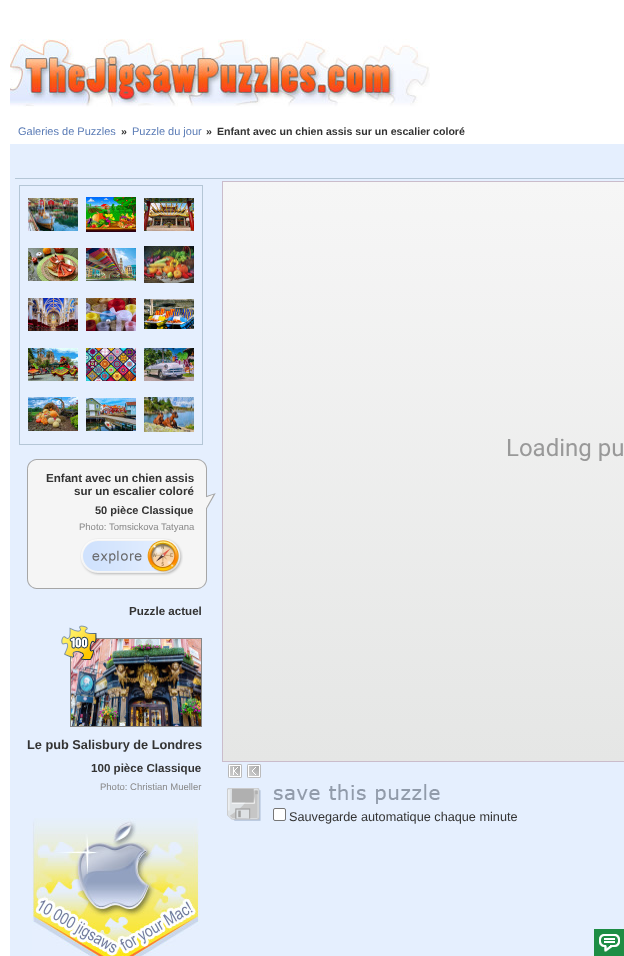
<!DOCTYPE html>
<meta charset="utf-8">
<style>body { margin: 0 } canvas { display: block }</style>
<canvas id="canvas" width="624" height="956"></canvas>
<img id="img1" src="img_01.png" hidden>
<img id="img2" src="img_02.png" hidden>
<img id="img3" src="img_03.png" hidden>
<img id="img4" src="img_04.png" hidden>
<img id="img5" src="img_05.png" hidden>
<img id="img6" src="img_06.png" hidden>
<img id="img7" src="img_07.png" hidden>
<img id="img8" src="img_08.png" hidden>
<img id="img9" src="img_09.png" hidden>
<img id="img10" src="img_10.png" hidden>
<img id="img11" src="img_11.png" hidden>
<img id="img12" src="img_12.png" hidden>
<img id="img13" src="img_13.png" hidden>
<img id="img14" src="img_14.png" hidden>
<img id="img15" src="img_15.png" hidden>
<img id="img16" src="img_16.png" hidden>
<img id="img17" src="img_17.png" hidden>
<img id="img18" src="img_18.png" hidden>
<img id="img19" src="img_20.png" hidden>
<img id="img20" src="img_19.png" hidden>
<img id="img21" src="img_21.png" hidden>
<img id="img22" src="img_22.png" hidden>
<img id="img23" src="img_23.png" hidden>
<img id="img24" src="img_24.png" hidden>
<img id="img25" src="img_25.png" hidden>
<script>
window.onload = function () {
	const canvas = document.getElementById("canvas");
	const ctx = canvas.getContext("2d");
	ctx.miterLimit = 4;
	ctx.fontKerning = "normal";
	function txt(s, x, y) {
		ctx.fillText(s, x, y);
	}
	function fill(x, y, w, h) {
		ctx.fillRect(x, y, w, h);
	}
	function img(id, x, y, w, h) {
		ctx.drawImage(document.getElementById(id), x, y, w, h);
	}
	let gradient;

	ctx.fillStyle = "#FFFFFF";
	fill(0, 0, 624, 956);
	img("img1", 10, 39, 420, 68);
	ctx.fillStyle = "#E5EFFE";
	fill(10, 144, 614, 812);
	ctx.fillStyle = "#B4C6D6";
	fill(15, 178, 609, 1);
	ctx.strokeStyle = "#B4C6D6";
	ctx.strokeRect(19.5, 185.5, 183, 259);
	img("img2", 28, 198, 50, 33);
	img("img3", 86, 197, 50, 35);
	img("img4", 144, 198, 50, 33);
	img("img5", 28, 248, 50, 33);
	img("img6", 86, 248, 50, 33);
	img("img7", 144, 246, 50, 37);
	img("img8", 28, 298, 50, 33);
	img("img9", 86, 298, 50, 33);
	img("img10", 144, 299, 50, 30);
	img("img11", 28, 348, 50, 33);
	img("img12", 86, 348, 50, 33);
	img("img13", 144, 348, 50, 33);
	img("img14", 28, 397, 50, 34);
	img("img15", 86, 398, 50, 33);
	img("img16", 144, 397, 50, 35);
	img("img17", 27, 459, 189, 130);
	img("img18", 80, 538, 103, 38);
	ctx.strokeStyle = "#858585";
	ctx.strokeRect(70.5, 638.5, 131, 88);
	img("img19", 71, 639, 130, 87);
	img("img20", 61, 625, 36, 35);
	img("img21", 32, 818, 168, 138);
	gradient = ctx.createLinearGradient(596, 762, 596, 181);
	gradient.addColorStop(0, "#E5E6E5");
	gradient.addColorStop(1, "#F6F6F6");
	ctx.fillStyle = gradient;
	fill(223, 182, 401, 579);
	ctx.strokeStyle = "#CABCCB";
	ctx.strokeRect(222.5, 181.5, 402, 580);
	img("img22", 228, 764, 14, 14);
	img("img23", 247, 764, 14, 14);
	img("img24", 227, 784, 213, 37);
	ctx.fillStyle = "#FFFFFF";
	ctx.beginPath();
	ctx.roundRect(273.5, 808.5, 12, 12, 1.5);
	ctx.fill();
	ctx.strokeStyle = "#767676";
	ctx.stroke();
	ctx.fillStyle = "#1D8D44";
	fill(594, 929, 30, 27);
	img("img25", 599, 934, 21, 18);
	ctx.font = "11px Liberation Sans";
	ctx.fillStyle = "#5B7CB6";
	txt("Galeries de Puzzles", 18, 135);
	ctx.font = "bold 10.6px Liberation Sans";
	ctx.fillStyle = "#333333";
	txt("»", 121, 135);
	ctx.font = "11px Liberation Sans";
	ctx.fillStyle = "#5B7CB6";
	txt("Puzzle du jour", 132, 135);
	ctx.font = "bold 10.6px Liberation Sans";
	ctx.fillStyle = "#333333";
	txt("»", 206, 135);
	txt("Enfant avec un chien assis sur un escalier coloré", 217, 135);
	ctx.font = "bold 11.6px Liberation Sans";
	txt("Enfant avec un chien assis", 46, 482);
	txt("sur un escalier coloré", 74, 495);
	ctx.font = "bold 11px Liberation Sans";
	txt("50 pièce Classique", 95, 514);
	ctx.font = "9.5px Liberation Sans";
	ctx.fillStyle = "#888888";
	txt("Photo: Tomsickova Tatyana", 79, 530);
	ctx.font = "bold 11.6px Liberation Sans";
	ctx.fillStyle = "#333333";
	txt("Puzzle actuel", 129, 615);
	ctx.font = "bold 12.75px Liberation Sans";
	txt("Le pub Salisbury de Londres", 27, 749);
	ctx.font = "bold 11.6px Liberation Sans";
	txt("100 pièce Classique", 91, 772);
	ctx.font = "9.5px Liberation Sans";
	ctx.fillStyle = "#888888";
	txt("Photo: Christian Mueller", 100, 790);
	ctx.font = "24px Roboto";
	ctx.fillStyle = "#999999";
	txt("Loading pu", 506, 456);
	ctx.font = "12.7px Liberation Sans";
	ctx.fillStyle = "#333333";
	txt("Sauvegarde automatique chaque minute", 289, 821);
};
</script>
